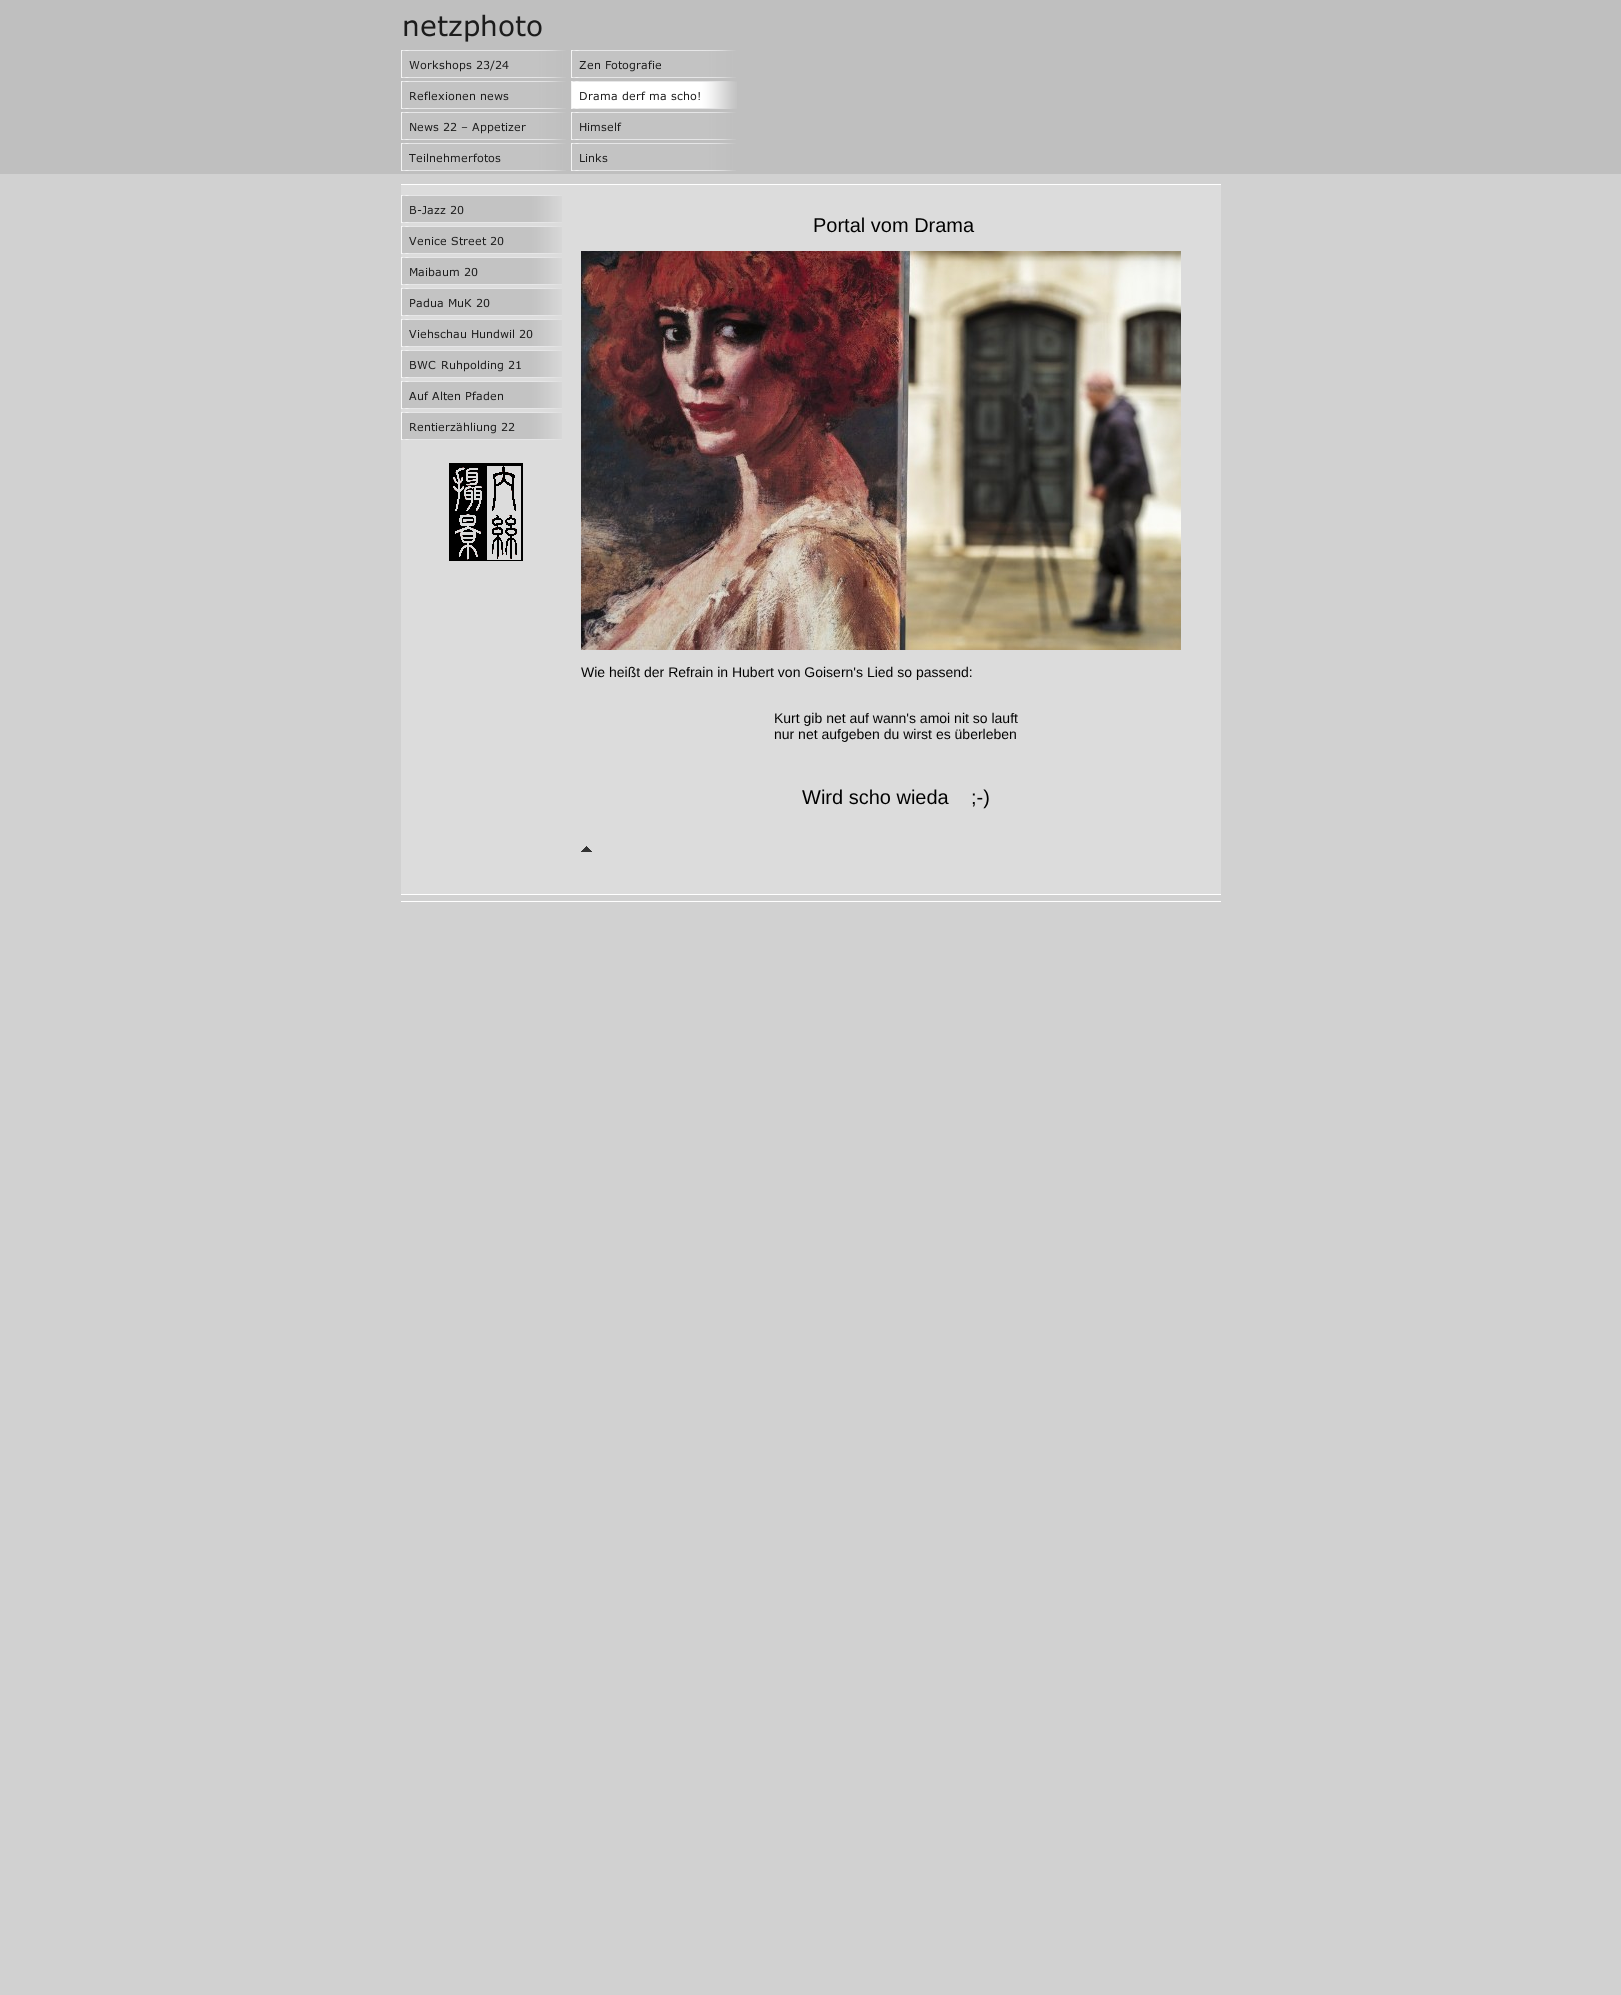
<!DOCTYPE html>
<meta charset="utf-8">
<style>body { margin: 0 } canvas { display: block }</style>
<canvas id="canvas" width="1621" height="1995"></canvas>
<img id="img1" src="img_01.png" hidden>
<img id="img2" src="img_02.png" hidden>
<img id="img3" src="img_03.png" hidden>
<img id="img4" src="img_04.png" hidden>
<img id="img5" src="img_05.png" hidden>
<img id="img6" src="img_06.png" hidden>
<img id="img7" src="img_07.png" hidden>
<img id="img8" src="img_08.png" hidden>
<img id="img9" src="img_09.png" hidden>
<img id="img10" src="img_10.png" hidden>
<img id="img11" src="img_11.png" hidden>
<img id="img12" src="img_12.png" hidden>
<img id="img13" src="img_13.png" hidden>
<img id="img14" src="img_14.png" hidden>
<img id="img15" src="img_15.png" hidden>
<img id="img16" src="img_16.png" hidden>
<img id="img17" src="img_17.png" hidden>
<img id="img18" src="img_18.png" hidden>
<img id="img19" src="img_19.png" hidden>
<img id="img20" src="img_20.png" hidden>
<script>
window.onload = function () {
	const canvas = document.getElementById("canvas");
	const ctx = canvas.getContext("2d");
	ctx.miterLimit = 4;
	ctx.fontKerning = "normal";
	function txt(s, x, y) {
		ctx.fillText(s, x, y);
	}
	function fill(x, y, w, h) {
		ctx.fillRect(x, y, w, h);
	}
	function img(id, x, y, w, h) {
		ctx.drawImage(document.getElementById(id), x, y, w, h);
	}

	ctx.fillStyle = "#D1D1D1";
	fill(0, 0, 1621, 1995);
	ctx.fillStyle = "#BFBFBF";
	fill(0, 0, 1621, 174);
	img("img1", 404, 14, 138, 28);
	img("img2", 401, 50, 165, 28);
	img("img3", 571, 50, 165, 28);
	img("img4", 401, 81, 165, 28);
	img("img5", 571, 81, 166, 28);
	img("img6", 401, 112, 165, 28);
	img("img7", 571, 112, 165, 28);
	img("img8", 401, 143, 165, 28);
	img("img9", 571, 143, 165, 28);
	ctx.fillStyle = "#DCDCDC";
	fill(401, 185, 820, 709);
	ctx.fillStyle = "#FFFFFF";
	fill(401, 184, 820, 1);
	img("img10", 401, 195, 161, 28);
	img("img11", 401, 226, 161, 28);
	img("img12", 401, 257, 161, 28);
	img("img13", 401, 288, 161, 28);
	img("img14", 401, 319, 161, 28);
	img("img15", 401, 350, 161, 28);
	img("img16", 401, 381, 161, 28);
	img("img17", 401, 412, 161, 28);
	img("img18", 449, 463, 74, 98);
	img("img19", 581, 251, 600, 399);
	img("img20", 581, 846, 11, 6);
	fill(401, 894, 820, 1);
	fill(401, 901, 820, 1);
	ctx.font = "20px Liberation Sans";
	ctx.fillStyle = "#000000";
	txt("Portal vom Drama", 813, 232);
	ctx.font = "14px Liberation Sans";
	txt("Wie heißt der Refrain in Hubert von Goisern's Lied so passend:", 581, 677);
	txt("Kurt gib net auf wann's amoi nit so lauft", 774, 723);
	txt("nur net aufgeben du wirst es überleben", 774, 739);
	ctx.font = "20px Liberation Sans";
	txt("Wird scho wieda    ;-)", 802, 804);
};
</script>
